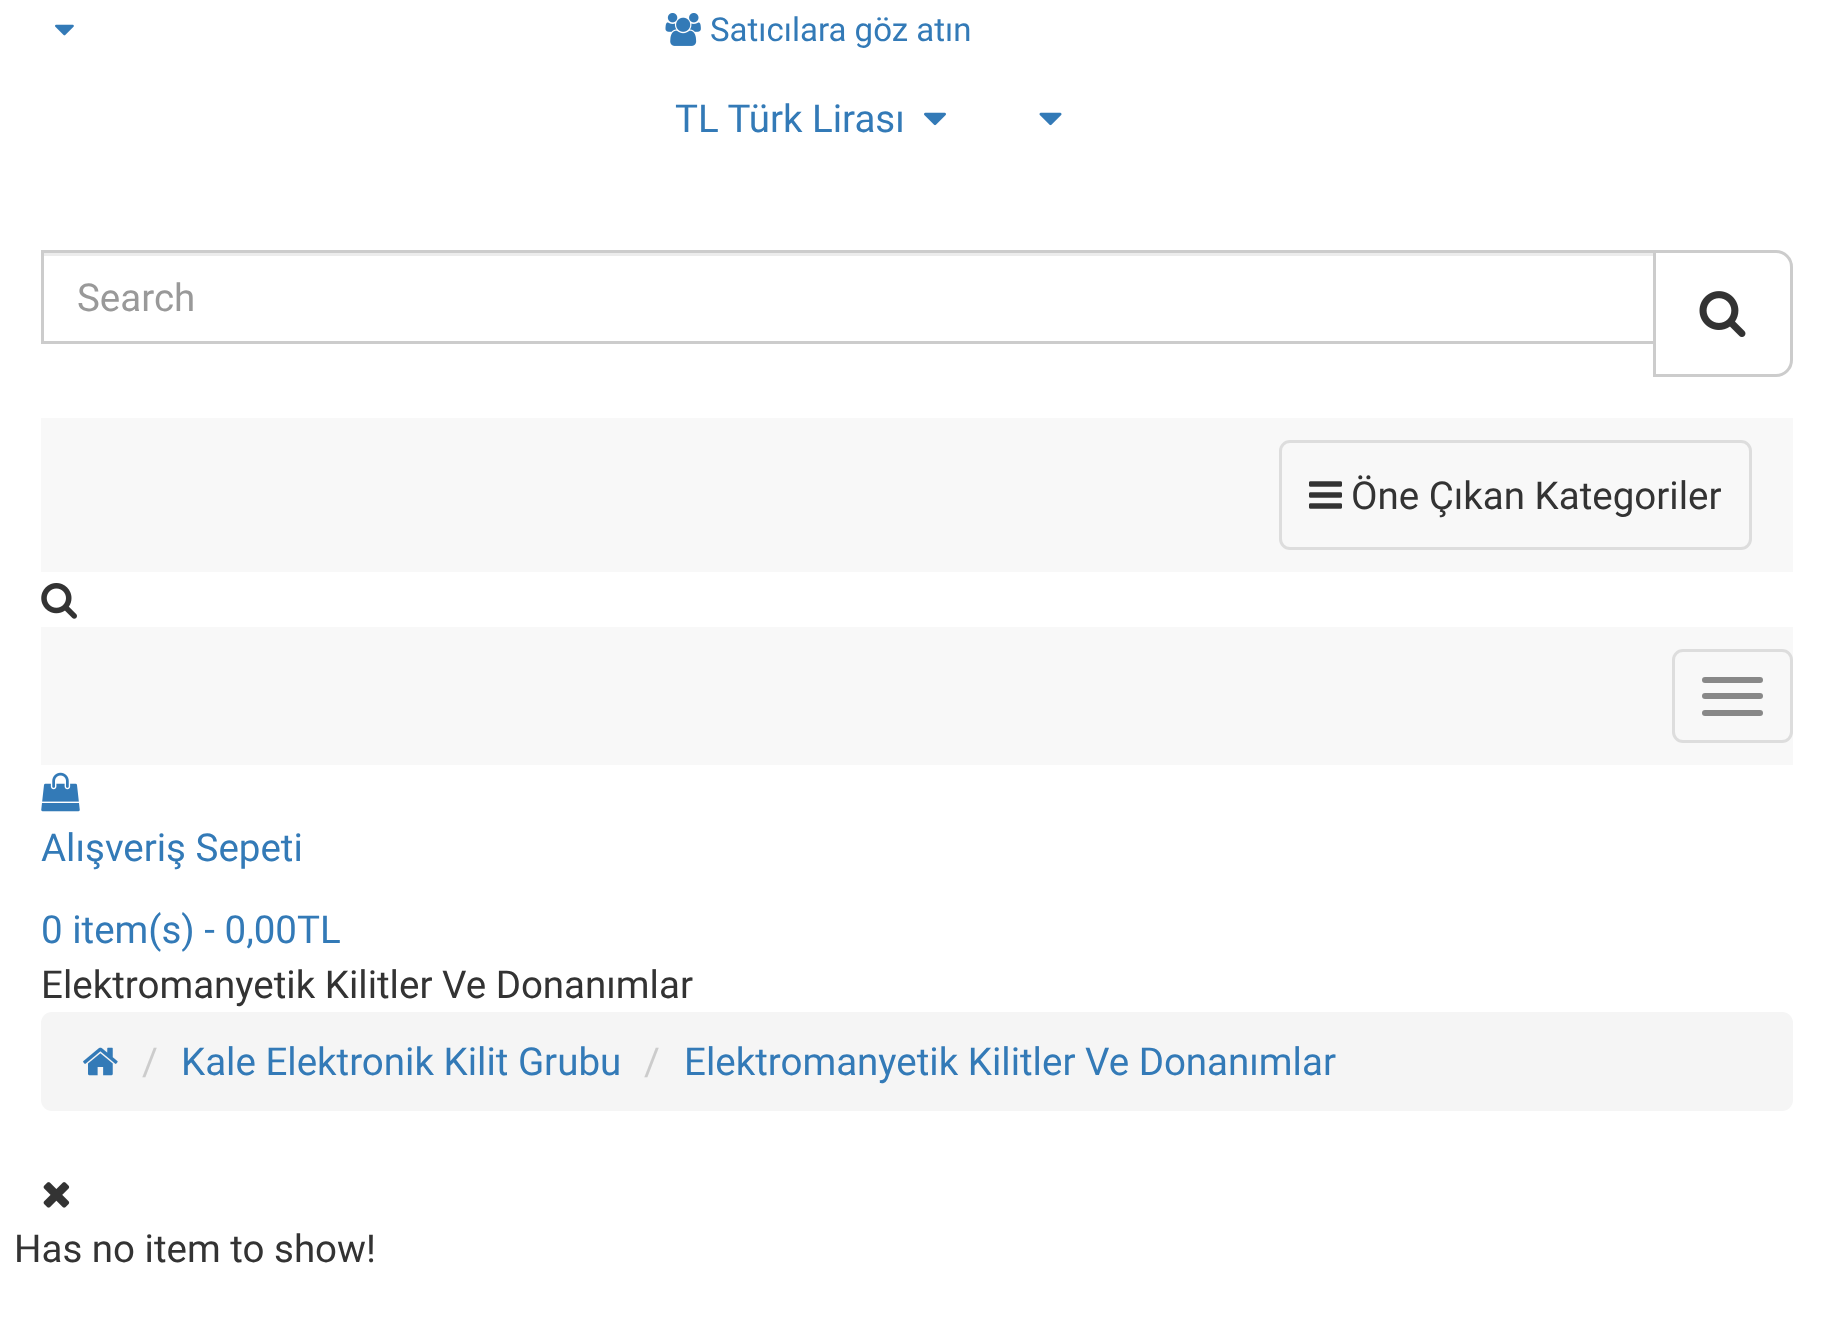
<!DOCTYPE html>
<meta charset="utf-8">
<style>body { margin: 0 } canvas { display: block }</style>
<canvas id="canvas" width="1832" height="1344"></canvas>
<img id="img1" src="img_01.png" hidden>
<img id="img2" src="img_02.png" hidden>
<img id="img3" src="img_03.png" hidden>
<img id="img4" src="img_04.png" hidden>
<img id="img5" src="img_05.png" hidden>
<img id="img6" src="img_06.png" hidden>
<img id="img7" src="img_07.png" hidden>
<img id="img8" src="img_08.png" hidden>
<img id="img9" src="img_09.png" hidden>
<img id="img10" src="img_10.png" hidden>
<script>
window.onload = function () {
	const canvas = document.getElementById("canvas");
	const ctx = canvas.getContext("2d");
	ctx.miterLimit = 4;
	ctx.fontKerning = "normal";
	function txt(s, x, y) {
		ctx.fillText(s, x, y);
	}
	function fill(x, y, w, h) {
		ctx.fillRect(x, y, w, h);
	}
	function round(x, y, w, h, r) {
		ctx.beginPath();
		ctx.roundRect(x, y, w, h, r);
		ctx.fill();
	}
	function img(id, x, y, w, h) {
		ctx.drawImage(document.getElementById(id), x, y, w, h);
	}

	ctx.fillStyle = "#FFFFFF";
	fill(0, 0, 1832, 1344);
	img("img1", 55, 24, 19, 12);
	img("img2", 665, 13, 36, 33);
	img("img3", 924, 112, 22, 14);
	img("img4", 1039, 112, 23, 14);
	ctx.fillStyle = "#ECECEC";
	fill(44, 253, 1609, 3);
	ctx.strokeStyle = "#CCCCCC";
	ctx.lineWidth = 3;
	ctx.strokeRect(42.5, 251.5, 1612, 91);
	ctx.fillStyle = "#FFFFFF";
	ctx.beginPath();
	ctx.roundRect(1654.5, 251.5, 137, 124, [0, 15.5, 15.5, 0]);
	ctx.fill();
	ctx.stroke();
	img("img5", 1699, 291, 47, 46);
	ctx.fillStyle = "#F8F8F8";
	fill(41, 418, 1752, 154);
	ctx.beginPath();
	ctx.roundRect(1280.5, 441.5, 470, 107, 9.5);
	ctx.strokeStyle = "#DDDDDD";
	ctx.stroke();
	img("img6", 1309, 481, 33, 28);
	img("img7", 41, 583, 36, 36);
	fill(41, 627, 1752, 138);
	ctx.beginPath();
	ctx.roundRect(1673.5, 650.5, 118, 91, 9.5);
	ctx.stroke();
	ctx.fillStyle = "#888888";
	round(1702, 677, 61, 6, 3);
	round(1702, 693, 61, 6, 3);
	round(1702, 710, 61, 6, 3);
	img("img8", 41, 772, 39, 40);
	ctx.fillStyle = "#F5F5F5";
	round(41, 1012, 1752, 99, 11);
	img("img9", 83, 1047, 35, 29);
	img("img10", 43, 1182, 27, 26);
	ctx.font = "33px Roboto";
	ctx.fillStyle = "#337AB7";
	txt("Satıcılara göz atın", 710, 41);
	ctx.font = "38.5px Roboto";
	txt("TL Türk Lirası", 675, 132);
	ctx.fillStyle = "#999999";
	txt("Search", 77, 311);
	ctx.fillStyle = "#333333";
	txt("Öne Çıkan Kategoriler", 1351, 509);
	ctx.fillStyle = "#337AB7";
	txt("Alışveriş Sepeti", 41, 861);
	txt("0 item(s) - 0,00TL", 41, 943);
	ctx.fillStyle = "#333333";
	txt("Elektromanyetik Kilitler Ve Donanımlar", 41, 998);
	ctx.fillStyle = "#CCCCCC";
	txt("/", 142, 1075);
	ctx.fillStyle = "#337AB7";
	txt("Kale Elektronik Kilit Grubu", 181, 1075);
	ctx.fillStyle = "#CCCCCC";
	txt("/", 644, 1075);
	ctx.fillStyle = "#337AB7";
	txt("Elektromanyetik Kilitler Ve Donanımlar", 684, 1075);
	ctx.fillStyle = "#333333";
	txt("Has no item to show!", 14, 1262);
};
</script>
